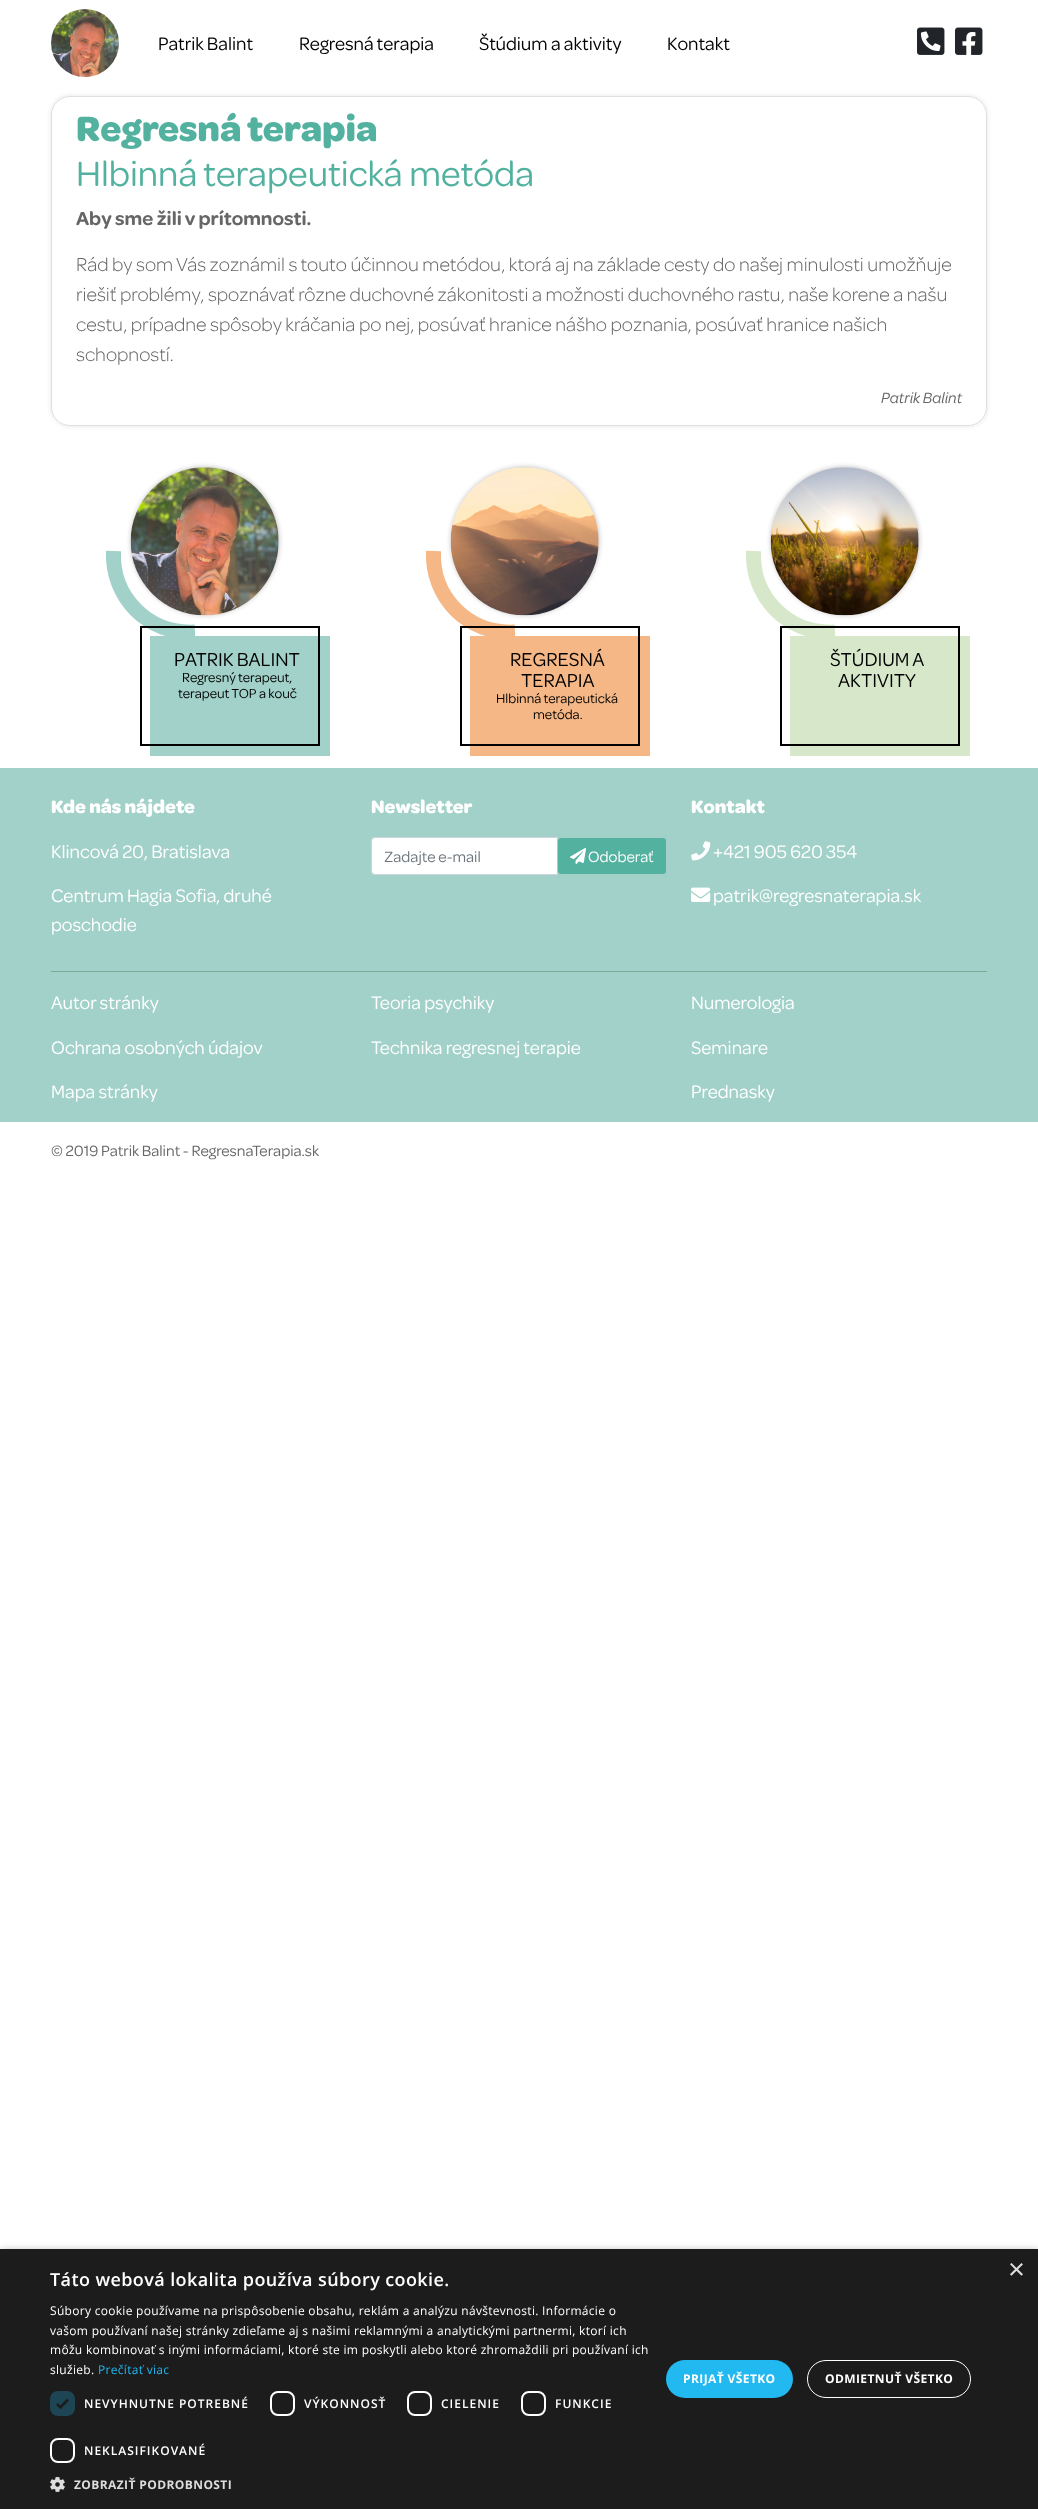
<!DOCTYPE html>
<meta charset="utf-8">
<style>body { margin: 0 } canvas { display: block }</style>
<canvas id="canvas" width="1038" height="2509"></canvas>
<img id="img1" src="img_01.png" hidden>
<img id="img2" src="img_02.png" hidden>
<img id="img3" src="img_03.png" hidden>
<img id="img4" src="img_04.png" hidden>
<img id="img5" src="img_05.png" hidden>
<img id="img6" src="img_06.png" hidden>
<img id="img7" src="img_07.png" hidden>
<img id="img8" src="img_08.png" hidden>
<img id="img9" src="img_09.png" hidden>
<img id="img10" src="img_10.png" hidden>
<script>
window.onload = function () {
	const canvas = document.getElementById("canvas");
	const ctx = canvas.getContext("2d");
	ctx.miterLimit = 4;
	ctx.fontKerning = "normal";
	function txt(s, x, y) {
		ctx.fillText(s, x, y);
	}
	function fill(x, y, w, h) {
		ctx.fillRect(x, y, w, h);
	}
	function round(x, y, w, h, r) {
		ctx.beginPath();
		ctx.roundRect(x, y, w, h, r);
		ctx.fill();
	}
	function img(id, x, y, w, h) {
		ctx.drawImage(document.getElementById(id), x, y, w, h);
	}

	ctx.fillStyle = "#FFFFFF";
	fill(0, 0, 1038, 2509);
	img("img1", 51, 9, 68, 68);
	img("img2", 917, 27, 28, 28);
	img("img3", 955, 27, 28, 28);
	ctx.save();
	ctx.beginPath();
	ctx.moveTo(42, 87);
	ctx.lineTo(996, 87);
	ctx.lineTo(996, 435);
	ctx.lineTo(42, 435);
	ctx.closePath();
	ctx.moveTo(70, 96);
	ctx.lineTo(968, 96);
	ctx.bezierCurveTo(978.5, 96, 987, 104.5, 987, 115);
	ctx.lineTo(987, 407);
	ctx.bezierCurveTo(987, 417.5, 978.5, 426, 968, 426);
	ctx.lineTo(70, 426);
	ctx.bezierCurveTo(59.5, 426, 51, 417.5, 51, 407);
	ctx.lineTo(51, 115);
	ctx.bezierCurveTo(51, 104.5, 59.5, 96, 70, 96);
	ctx.closePath();
	ctx.clip("evenodd");
	ctx.fillStyle = "rgba(0, 0, 0, 0.1)";
	ctx.filter = "blur(2.5px)";
	ctx.beginPath();
	ctx.roundRect(51, 96, 936, 330, 19);
	ctx.fill();
	ctx.filter = "none";
	ctx.restore();
	ctx.fillStyle = "rgba(255, 255, 255, 0.8)";
	ctx.beginPath();
	ctx.roundRect(51.5, 96.5, 935, 329, 18.5);
	ctx.fill();
	ctx.strokeStyle = "#DFDFDF";
	ctx.stroke();
	ctx.beginPath();
	ctx.moveTo(195, 632);
	ctx.bezierCurveTo(148, 634.5, 111.5, 597.5, 113.5, 551);
	ctx.strokeStyle = "#A1D1C8";
	ctx.lineWidth = 15;
	ctx.stroke();
	ctx.fillStyle = "rgba(0, 0, 0, 0.25)";
	ctx.filter = "blur(2.5px)";
	ctx.beginPath();
	ctx.roundRect(131, 467, 148, 148, 74);
	ctx.fill();
	ctx.filter = "none";
	img("img4", 130, 467, 149, 149);
	ctx.fillStyle = "#A1D1C8";
	fill(150, 636, 180, 120);
	ctx.strokeStyle = "#000000";
	ctx.lineWidth = 2;
	ctx.strokeRect(141, 627, 178, 118);
	ctx.beginPath();
	ctx.moveTo(515, 632);
	ctx.bezierCurveTo(468, 634.5, 431.5, 597.5, 433.5, 551);
	ctx.strokeStyle = "#F4B785";
	ctx.lineWidth = 15;
	ctx.stroke();
	ctx.fillStyle = "rgba(0, 0, 0, 0.25)";
	ctx.filter = "blur(2.5px)";
	ctx.beginPath();
	ctx.roundRect(451, 467, 148, 148, 74);
	ctx.fill();
	ctx.filter = "none";
	img("img5", 450, 467, 149, 149);
	ctx.fillStyle = "#F4B785";
	fill(470, 636, 180, 120);
	ctx.strokeStyle = "#000000";
	ctx.lineWidth = 2;
	ctx.strokeRect(461, 627, 178, 118);
	ctx.beginPath();
	ctx.moveTo(835, 632);
	ctx.bezierCurveTo(788, 634.5, 751.5, 597.5, 753.5, 551);
	ctx.strokeStyle = "#D7E8CA";
	ctx.lineWidth = 15;
	ctx.stroke();
	ctx.fillStyle = "rgba(0, 0, 0, 0.25)";
	ctx.filter = "blur(2.5px)";
	ctx.beginPath();
	ctx.roundRect(771, 467, 148, 148, 74);
	ctx.fill();
	ctx.filter = "none";
	img("img6", 770, 467, 149, 149);
	ctx.fillStyle = "#D7E8CA";
	fill(790, 636, 180, 120);
	ctx.strokeStyle = "#000000";
	ctx.lineWidth = 2;
	ctx.strokeRect(781, 627, 178, 118);
	ctx.fillStyle = "#A1D1C8";
	fill(0, 768, 1038, 354);
	ctx.fillStyle = "#FFFFFF";
	ctx.beginPath();
	ctx.roundRect(371.5, 837.5, 186, 37, [3.5, 0, 0, 3.5]);
	ctx.fill();
	ctx.strokeStyle = "#CED4DA";
	ctx.lineWidth = 1;
	ctx.stroke();
	ctx.fillStyle = "#53B19F";
	ctx.beginPath();
	ctx.roundRect(557.5, 837.5, 109, 37, 3.5);
	ctx.fill();
	ctx.strokeStyle = "#A1D1C8";
	ctx.stroke();
	img("img7", 570, 848, 16, 16);
	img("img8", 691, 841, 20, 20);
	img("img9", 691, 887, 20, 15);
	ctx.fillStyle = "#79AA96";
	fill(51, 971, 936, 1);
	ctx.fillStyle = "rgba(0, 0, 0, 0.35)";
	ctx.filter = "blur(4px)";
	ctx.beginPath();
	ctx.rect(1, 2251, 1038, 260);
	ctx.fill();
	ctx.filter = "none";
	ctx.fillStyle = "#1C1C1C";
	fill(0, 2249, 1038, 260);
	ctx.fillStyle = "#1E4553";
	round(50, 2391, 25, 25, 8);
	ctx.beginPath();
	ctx.moveTo(57, 2404);
	ctx.lineTo(60.5, 2407.5);
	ctx.lineTo(68, 2399.5);
	ctx.strokeStyle = "#1C1C1C";
	ctx.lineWidth = 2.6;
	ctx.stroke();
	ctx.beginPath();
	ctx.roundRect(271, 2392, 23, 23, 7);
	ctx.strokeStyle = "#FFFFFF";
	ctx.lineWidth = 2;
	ctx.stroke();
	ctx.beginPath();
	ctx.roundRect(408, 2392, 23, 23, 7);
	ctx.stroke();
	ctx.beginPath();
	ctx.roundRect(522, 2392, 23, 23, 7);
	ctx.stroke();
	ctx.beginPath();
	ctx.roundRect(51, 2439, 23, 23, 7);
	ctx.stroke();
	img("img10", 50, 2477, 15, 15);
	ctx.fillStyle = "#22B8F0";
	round(666, 2360, 127, 38, 19);
	ctx.beginPath();
	ctx.roundRect(807.5, 2360.5, 163, 37, 18.5);
	ctx.lineWidth = 1;
	ctx.stroke();
	ctx.font = "19.25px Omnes";
	ctx.fillStyle = "#000000";
	txt("Patrik Balint", 158, 50);
	txt("Regresná terapia", 299, 50);
	txt("Štúdium a aktivity", 479, 50);
	txt("Kontakt", 667, 50);
	ctx.font = "bold 37.5px Omnes";
	ctx.fillStyle = "#53B19F";
	txt("Regresná terapia", 76, 141);
	ctx.font = "37.5px Omnes";
	txt("Hlbinná terapeutická metóda", 76, 186);
	ctx.font = "600 20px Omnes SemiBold";
	ctx.fillStyle = "#666666";
	txt("Aby sme žili v prítomnosti.", 76, 225);
	ctx.font = "300 20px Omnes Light";
	txt("Rád by som Vás zoznámil s touto účinnou metódou, ktorá aj na základe cesty do našej minulosti umožňuje", 76, 271);
	txt("riešiť problémy, spoznávať rôzne duchovné zákonitosti a možnosti duchovného rastu, naše korene a našu", 76, 301);
	txt("cestu, prípadne spôsoby kráčania po nej, posúvať hranice nášho poznania, posúvať hranice našich", 76, 331);
	txt("schopností.", 76, 361);
	ctx.font = "italic 16px Omnes";
	txt("Patrik Balint", 881, 403);
	ctx.font = "20px Omnes";
	ctx.fillStyle = "#000000";
	txt("PATRIK BALINT", 174, 666);
	ctx.font = "14px Omnes";
	txt("Regresný terapeut,", 182, 682);
	txt("terapeut TOP a kouč", 178, 698);
	ctx.font = "20px Omnes";
	txt("REGRESNÁ", 510, 666);
	txt("TERAPIA", 521, 687);
	ctx.font = "14px Omnes";
	txt("Hlbinná terapeutická", 496, 703);
	txt("metóda.", 533, 719);
	ctx.font = "20px Omnes";
	txt("ŠTÚDIUM A", 830, 666);
	txt("AKTIVITY", 838, 687);
	ctx.font = "bold 19.25px Omnes";
	ctx.fillStyle = "#FFFFFF";
	txt("Kde nás nájdete", 51, 813);
	ctx.font = "19.25px Omnes";
	txt("Klincová 20, Bratislava", 51, 858);
	txt("Centrum Hagia Sofia, druhé", 51, 902);
	txt("poschodie", 51, 931);
	ctx.font = "bold 19.25px Omnes";
	txt("Newsletter", 371, 813);
	ctx.font = "16px Omnes";
	ctx.fillStyle = "#6C757D";
	txt("Zadajte e-mail", 384, 862);
	ctx.fillStyle = "#FFFFFF";
	txt("Odoberať", 588, 862);
	ctx.font = "bold 19.25px Omnes";
	txt("Kontakt", 691, 813);
	ctx.font = "19.25px Omnes";
	txt("+421 905 620 354", 713, 858);
	txt("patrik@regresnaterapia.sk", 713, 902);
	txt("Autor stránky", 51, 1009);
	txt("Ochrana osobných údajov", 51, 1054);
	txt("Mapa stránky", 51, 1098);
	txt("Teoria psychiky", 371, 1009);
	txt("Technika regresnej terapie", 371, 1054);
	txt("Numerologia", 691, 1009);
	txt("Seminare", 691, 1054);
	txt("Prednasky", 691, 1098);
	ctx.font = "16px Omnes";
	ctx.fillStyle = "#666666";
	txt("© 2019 Patrik Balint - RegresnaTerapia.sk", 51, 1156);
	ctx.font = "29px Liberation Sans";
	ctx.fillStyle = "#DDDDDD";
	txt("×", 1008, 2279);
	ctx.letterSpacing = "0.4px";
	ctx.font = "600 18px Open Sans";
	ctx.fillStyle = "#FFFFFF";
	txt("Táto webová lokalita používa súbory cookie.", 50, 2286);
	ctx.letterSpacing = "0.3px";
	ctx.font = "12px Open Sans";
	txt("Súbory cookie používame na prispôsobenie obsahu, reklám a analýzu návštevnosti. Informácie o", 50, 2315);
	txt("vašom používaní našej stránky zdieľame aj s našimi reklamnými a analytickými partnermi, ktorí ich", 50, 2335);
	txt("môžu kombinovať s inými informáciami, ktoré ste im poskytli alebo ktoré zhromaždili pri používaní ich", 50, 2354);
	txt("služieb.", 50, 2374);
	ctx.fillStyle = "#22B8F0";
	txt("Prečítať viac", 98, 2374);
	ctx.letterSpacing = "1px";
	ctx.font = "600 12px Open Sans";
	ctx.fillStyle = "#FFFFFF";
	txt("NEVYHNUTNE POTREBNÉ", 84, 2408);
	txt("VÝKONNOSŤ", 304, 2408);
	txt("CIELENIE", 441, 2408);
	txt("FUNKCIE", 555, 2408);
	txt("NEKLASIFIKOVANÉ", 84, 2455);
	ctx.letterSpacing = "0.4px";
	ctx.font = "bold 12px Open Sans";
	ctx.fillStyle = "#DDDDDD";
	txt("ZOBRAZIŤ PODROBNOSTI", 74, 2489);
	ctx.fillStyle = "#FFFFFF";
	txt("PRIJAŤ VŠETKO", 683, 2383);
	txt("ODMIETNUŤ VŠETKO", 825, 2383);
};
</script>
